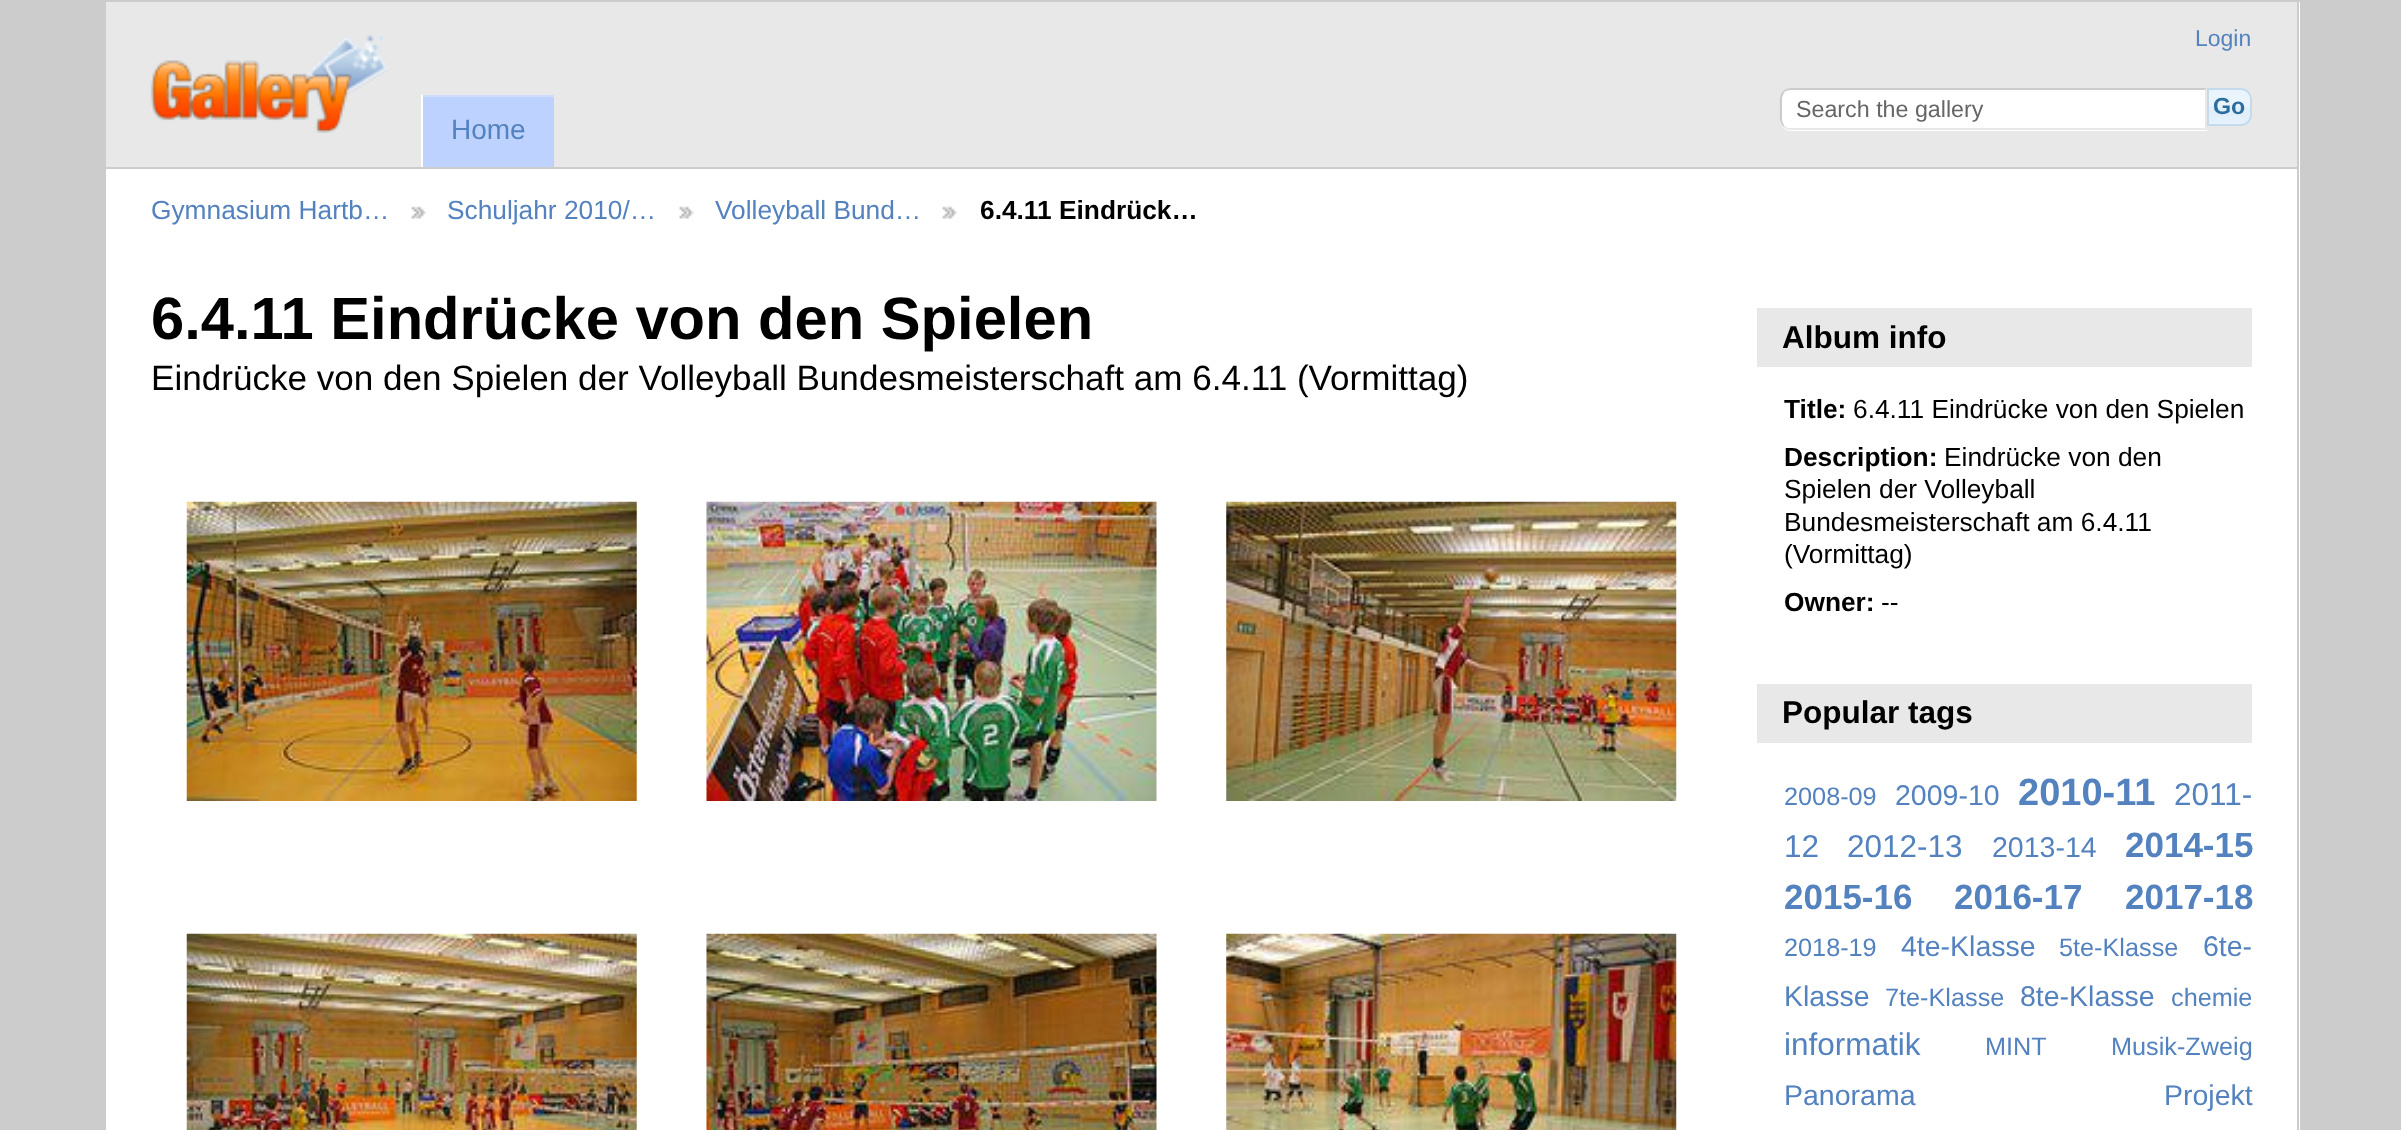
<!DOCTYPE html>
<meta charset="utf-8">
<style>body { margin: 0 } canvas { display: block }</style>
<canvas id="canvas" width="2401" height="1130"></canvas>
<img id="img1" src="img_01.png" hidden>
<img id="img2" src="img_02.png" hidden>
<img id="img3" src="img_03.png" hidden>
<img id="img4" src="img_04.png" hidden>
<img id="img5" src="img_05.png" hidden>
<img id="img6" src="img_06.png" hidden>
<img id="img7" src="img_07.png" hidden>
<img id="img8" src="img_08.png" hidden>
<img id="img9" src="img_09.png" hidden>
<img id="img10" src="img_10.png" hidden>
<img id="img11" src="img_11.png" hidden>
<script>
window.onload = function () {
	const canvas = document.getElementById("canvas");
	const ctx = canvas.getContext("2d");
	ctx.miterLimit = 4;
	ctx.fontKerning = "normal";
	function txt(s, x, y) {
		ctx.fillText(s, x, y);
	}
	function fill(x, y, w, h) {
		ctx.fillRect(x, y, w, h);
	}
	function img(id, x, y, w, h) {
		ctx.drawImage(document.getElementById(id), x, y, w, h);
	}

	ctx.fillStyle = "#CCCCCC";
	fill(0, 0, 2401, 1130);
	ctx.fillStyle = "#FFFFFF";
	fill(106, 2, 2194, 1128);
	ctx.fillStyle = "#CCCCCC";
	fill(2297, 0, 2, 1130);
	ctx.fillStyle = "#E8E8E8";
	fill(106, 2, 2191, 165);
	ctx.fillStyle = "#CCCCCC";
	fill(106, 167, 2191, 2);
	img("img1", 150, 34, 239, 99);
	ctx.fillStyle = "#FFFFFF";
	ctx.beginPath();
	ctx.roundRect(1780, 88, 427, 43, [11, 0, 0, 11]);
	ctx.fill();
	ctx.fillStyle = "#CCCCCC";
	ctx.beginPath();
	ctx.moveTo(1791, 88);
	ctx.bezierCurveTo(1788, 88, 1785, 89, 1783, 91);
	ctx.lineTo(1784, 92);
	ctx.bezierCurveTo(1786, 91, 1788, 90, 1791, 90);
	ctx.lineTo(2205, 90);
	ctx.lineTo(2207, 88);
	ctx.closePath();
	ctx.fill();
	ctx.fillStyle = "#E8E8E8";
	ctx.beginPath();
	ctx.moveTo(2205, 128);
	ctx.lineTo(2207, 130);
	ctx.lineTo(2207, 88);
	ctx.lineTo(2205, 90);
	ctx.closePath();
	ctx.fill();
	ctx.beginPath();
	ctx.moveTo(2207, 130);
	ctx.lineTo(1791, 130);
	ctx.bezierCurveTo(1788, 130, 1785, 129, 1783, 127);
	ctx.lineTo(1785, 126);
	ctx.bezierCurveTo(1786, 127, 1787, 128, 1789, 128);
	ctx.lineTo(2205, 128);
	ctx.closePath();
	ctx.fill();
	ctx.fillStyle = "#CCCCCC";
	ctx.beginPath();
	ctx.moveTo(1783, 91);
	ctx.bezierCurveTo(1778.5, 96, 1780, 103, 1780, 109);
	ctx.bezierCurveTo(1780, 115, 1778.5, 122, 1783.5, 127);
	ctx.lineTo(1784.5, 125.5);
	ctx.bezierCurveTo(1783, 124, 1782.5, 122, 1782, 119.5);
	ctx.lineTo(1782, 98.5);
	ctx.bezierCurveTo(1782.5, 96.5, 1783, 94, 1784.5, 92.5);
	ctx.closePath();
	ctx.fill();
	img("img2", 2209, 88, 43, 38);
	ctx.beginPath();
	ctx.roundRect(2208, 89, 43, 36, [0, 10, 10, 0]);
	ctx.strokeStyle = "#C5DBEC";
	ctx.lineWidth = 2;
	ctx.stroke();
	ctx.fillStyle = "#BDD2FF";
	fill(423, 97, 131, 70);
	ctx.fillStyle = "#CFDEFF";
	fill(421, 95, 133, 2);
	ctx.fillStyle = "#FFFFFF";
	fill(421, 95, 2, 72);
	img("img3", 411, 206, 15, 13);
	img("img4", 679, 206, 15, 13);
	img("img5", 942, 206, 15, 13);
	img("img6", 186, 501, 451, 300);
	img("img7", 706, 501, 451, 300);
	img("img8", 1226, 501, 451, 300);
	img("img9", 186, 933, 451, 197);
	img("img10", 706, 933, 451, 197);
	img("img11", 1226, 933, 451, 197);
	ctx.fillStyle = "#E8E8E8";
	fill(1757, 308, 495, 59);
	fill(1757, 684, 495, 59);
	ctx.font = "23px Liberation Sans";
	ctx.fillStyle = "#5382BF";
	txt("Login", 2195, 46);
	ctx.font = "23.25px Liberation Sans";
	ctx.fillStyle = "#666666";
	txt("Search the gallery", 1796, 117);
	ctx.font = "bold 23.25px Liberation Sans";
	ctx.fillStyle = "#2E6E9E";
	txt("Go", 2213, 114);
	ctx.font = "28px Liberation Sans";
	ctx.fillStyle = "#5382BF";
	txt("Home", 451, 139);
	ctx.font = "26.3px Liberation Sans";
	txt("Gymnasium Hartb…", 151, 219);
	txt("Schuljahr 2010/…", 447, 219);
	txt("Volleyball Bund…", 715, 219);
	ctx.font = "bold 26.3px Liberation Sans";
	ctx.fillStyle = "#000000";
	txt("6.4.11 Eindrück…", 980, 219);
	ctx.font = "bold 59.7px Liberation Sans";
	txt("6.4.11 Eindrücke von den Spielen", 151, 339);
	ctx.font = "35.1px Liberation Sans";
	txt("Eindrücke von den Spielen der Volleyball Bundesmeisterschaft am 6.4.11 (Vormittag)", 151, 390);
	ctx.font = "bold 31.5px Liberation Sans";
	txt("Album info", 1782, 348);
	ctx.font = "bold 26.3px Liberation Sans";
	txt("Title:", 1784, 418);
	ctx.font = "26.3px Liberation Sans";
	txt("6.4.11 Eindrücke von den Spielen", 1853, 418);
	ctx.font = "bold 26.3px Liberation Sans";
	txt("Description:", 1784, 466);
	ctx.font = "26.3px Liberation Sans";
	txt("Eindrücke von den", 1944, 466);
	txt("Spielen der Volleyball", 1784, 498);
	txt("Bundesmeisterschaft am 6.4.11", 1784, 531);
	txt("(Vormittag)", 1784, 563);
	ctx.font = "bold 26.3px Liberation Sans";
	txt("Owner:", 1784, 611);
	ctx.font = "26.3px Liberation Sans";
	txt("--", 1881, 611);
	ctx.font = "bold 31.5px Liberation Sans";
	txt("Popular tags", 1782, 723);
	ctx.font = "25.25px Liberation Sans";
	ctx.fillStyle = "#5382BF";
	txt("2008-09", 1784, 805);
	ctx.font = "28.5px Liberation Sans";
	txt("2009-10", 1895, 805);
	ctx.font = "bold 38px Liberation Sans";
	txt("2010-11", 2018, 805);
	ctx.font = "31.5px Liberation Sans";
	txt("2011-", 2174, 805);
	txt("12", 1784, 857);
	txt("2012-13", 1847, 857);
	ctx.font = "28.5px Liberation Sans";
	txt("2013-14", 1992, 857);
	ctx.font = "bold 35px Liberation Sans";
	txt("2014-15", 2125, 857);
	txt("2015-16", 1784, 909);
	txt("2016-17", 1954, 909);
	txt("2017-18", 2125, 909);
	ctx.font = "25.25px Liberation Sans";
	txt("2018-19", 1784, 956);
	ctx.font = "28.5px Liberation Sans";
	txt("4te-Klasse", 1901, 956);
	ctx.font = "25.25px Liberation Sans";
	txt("5te-Klasse", 2059, 956);
	ctx.font = "28.5px Liberation Sans";
	txt("6te-", 2203, 956);
	txt("Klasse", 1784, 1006);
	ctx.font = "25.25px Liberation Sans";
	txt("7te-Klasse", 1885, 1006);
	ctx.font = "28.5px Liberation Sans";
	txt("8te-Klasse", 2020, 1006);
	ctx.font = "25.25px Liberation Sans";
	txt("chemie", 2171, 1006);
	ctx.font = "31.5px Liberation Sans";
	txt("informatik", 1784, 1055);
	ctx.font = "25.25px Liberation Sans";
	txt("MINT", 1985, 1055);
	txt("Musik-Zweig", 2111, 1055);
	ctx.font = "28.5px Liberation Sans";
	txt("Panorama", 1784, 1105);
	txt("Projekt", 2164, 1105);
};
</script>
